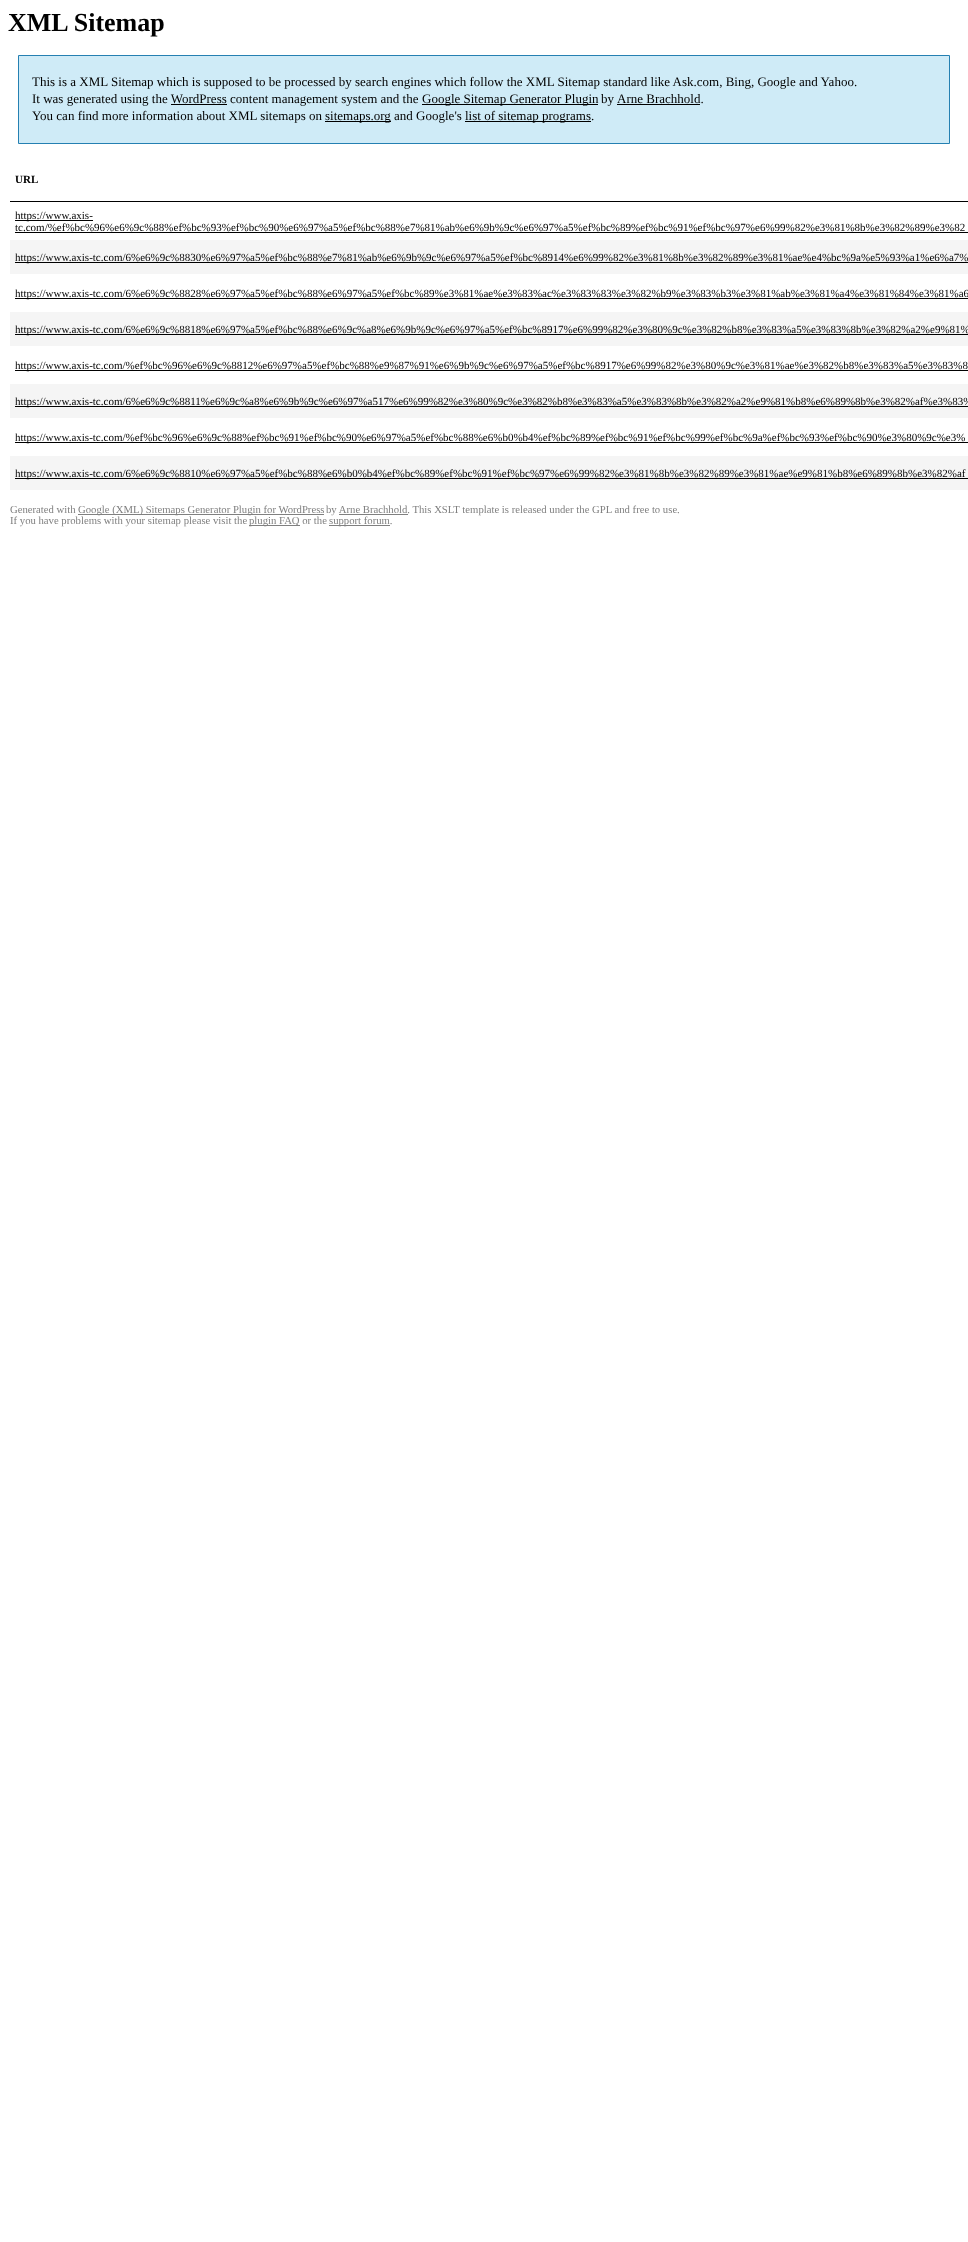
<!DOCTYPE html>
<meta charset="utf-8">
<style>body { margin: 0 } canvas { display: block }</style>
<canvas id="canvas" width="968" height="2242"></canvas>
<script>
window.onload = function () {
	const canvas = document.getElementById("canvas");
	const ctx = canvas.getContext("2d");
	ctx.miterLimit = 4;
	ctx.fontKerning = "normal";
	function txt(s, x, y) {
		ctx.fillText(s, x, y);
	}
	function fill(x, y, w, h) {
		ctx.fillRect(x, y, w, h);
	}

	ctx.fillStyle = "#FFFFFF";
	fill(0, 0, 968, 2242);
	ctx.fillStyle = "#CFEBF7";
	ctx.beginPath();
	ctx.rect(18.5, 55.5, 931, 88);
	ctx.fill();
	ctx.strokeStyle = "#2580B2";
	ctx.stroke();
	ctx.fillStyle = "#000000";
	fill(422, 104, 176, 1);
	fill(617, 104, 83, 1);
	fill(171, 104, 56, 1);
	fill(325, 121, 66, 1);
	fill(465, 121, 126, 1);
	fill(10, 201, 958, 1);
	fill(15, 220, 78, 1);
	fill(15, 232, 953, 1);
	ctx.fillStyle = "#F5F5F5";
	fill(10, 240, 958, 34);
	ctx.fillStyle = "#000000";
	fill(15, 262, 953, 1);
	fill(15, 298, 953, 1);
	ctx.fillStyle = "#F5F5F5";
	fill(10, 312, 958, 34);
	ctx.fillStyle = "#000000";
	fill(15, 334, 953, 1);
	fill(15, 370, 953, 1);
	ctx.fillStyle = "#F5F5F5";
	fill(10, 384, 958, 34);
	ctx.fillStyle = "#000000";
	fill(15, 406, 953, 1);
	fill(15, 442, 953, 1);
	ctx.fillStyle = "#F5F5F5";
	fill(10, 456, 958, 34);
	ctx.fillStyle = "#000000";
	fill(15, 478, 953, 1);
	ctx.fillStyle = "#808080";
	fill(78, 514, 246, 1);
	fill(339, 514, 69, 1);
	fill(249, 525, 51, 1);
	fill(329, 525, 61, 1);
	ctx.font = "bold 26px Liberation Serif";
	ctx.fillStyle = "#000000";
	txt("XML Sitemap", 8, 31);
	ctx.font = "13px Liberation Serif";
	txt("This is a XML Sitemap which is supposed to be processed by search engines which follow the XML Sitemap standard like Ask.com, Bing, Google and Yahoo.", 32, 86);
	txt("It was generated using the WordPress content management system and the", 32, 103);
	txt("Google Sitemap Generator Plugin", 422, 103);
	txt("by", 601, 103);
	txt("Arne Brachhold.", 617, 103);
	txt("You can find more information about XML sitemaps on", 32, 120);
	txt("sitemaps.org and Google's", 325, 120);
	txt("list of sitemap programs.", 465, 120);
	ctx.font = "bold 11px Liberation Serif";
	txt("URL", 15, 183);
	ctx.font = "11px Liberation Serif";
	txt("https://www.axis-", 15, 219);
	txt("tc.com/%ef%bc%96%e6%9c%88%ef%bc%93%ef%bc%90%e6%97%a5%ef%bc%88%e7%81%ab%e6%9b%9c%e6%97%a5%ef%bc%89%ef%bc%91%ef%bc%97%e6%99%82%e3%81%8b%e3%82%89%e3%82", 15, 231);
	txt("https://www.axis-tc.com/6%e6%9c%8830%e6%97%a5%ef%bc%88%e7%81%ab%e6%9b%9c%e6%97%a5%ef%bc%8914%e6%99%82%e3%81%8b%e3%82%89%e3%81%ae%e4%bc%9a%e5%93%a1%e6%a7%", 15, 261);
	txt("https://www.axis-tc.com/6%e6%9c%8828%e6%97%a5%ef%bc%88%e6%97%a5%ef%bc%89%e3%81%ae%e3%83%ac%e3%83%83%e3%82%b9%e3%83%b3%e3%81%ab%e3%81%a4%e3%81%84%e3%81%a6", 15, 297);
	txt("https://www.axis-tc.com/6%e6%9c%8818%e6%97%a5%ef%bc%88%e6%9c%a8%e6%9b%9c%e6%97%a5%ef%bc%8917%e6%99%82%e3%80%9c%e3%82%b8%e3%83%a5%e3%83%8b%e3%82%a2%e9%81%", 15, 333);
	txt("https://www.axis-tc.com/%ef%bc%96%e6%9c%8812%e6%97%a5%ef%bc%88%e9%87%91%e6%9b%9c%e6%97%a5%ef%bc%8917%e6%99%82%e3%80%9c%e3%81%ae%e3%82%b8%e3%83%a5%e3%83%8", 15, 369);
	txt("https://www.axis-tc.com/6%e6%9c%8811%e6%9c%a8%e6%9b%9c%e6%97%a517%e6%99%82%e3%80%9c%e3%82%b8%e3%83%a5%e3%83%8b%e3%82%a2%e9%81%b8%e6%89%8b%e3%82%af%e3%83%", 15, 405);
	txt("https://www.axis-tc.com/%ef%bc%96%e6%9c%88%ef%bc%91%ef%bc%90%e6%97%a5%ef%bc%88%e6%b0%b4%ef%bc%89%ef%bc%91%ef%bc%99%ef%bc%9a%ef%bc%93%ef%bc%90%e3%80%9c%e3%", 15, 441);
	txt("https://www.axis-tc.com/6%e6%9c%8810%e6%97%a5%ef%bc%88%e6%b0%b4%ef%bc%89%ef%bc%91%ef%bc%97%e6%99%82%e3%81%8b%e3%82%89%e3%81%ae%e9%81%b8%e6%89%8b%e3%82%af", 15, 477);
	ctx.font = "10.7px Liberation Serif";
	ctx.fillStyle = "#808080";
	txt("Generated with", 10, 513);
	txt("Google (XML) Sitemaps Generator Plugin for WordPress", 78, 513);
	txt("by Arne Brachhold. This XSLT template is released under the GPL and free to use.", 326, 513);
	txt("If you have problems with your sitemap please visit the", 10, 524);
	txt("plugin FAQ or the", 249, 524);
	txt("support forum.", 329, 524);
};
</script>
